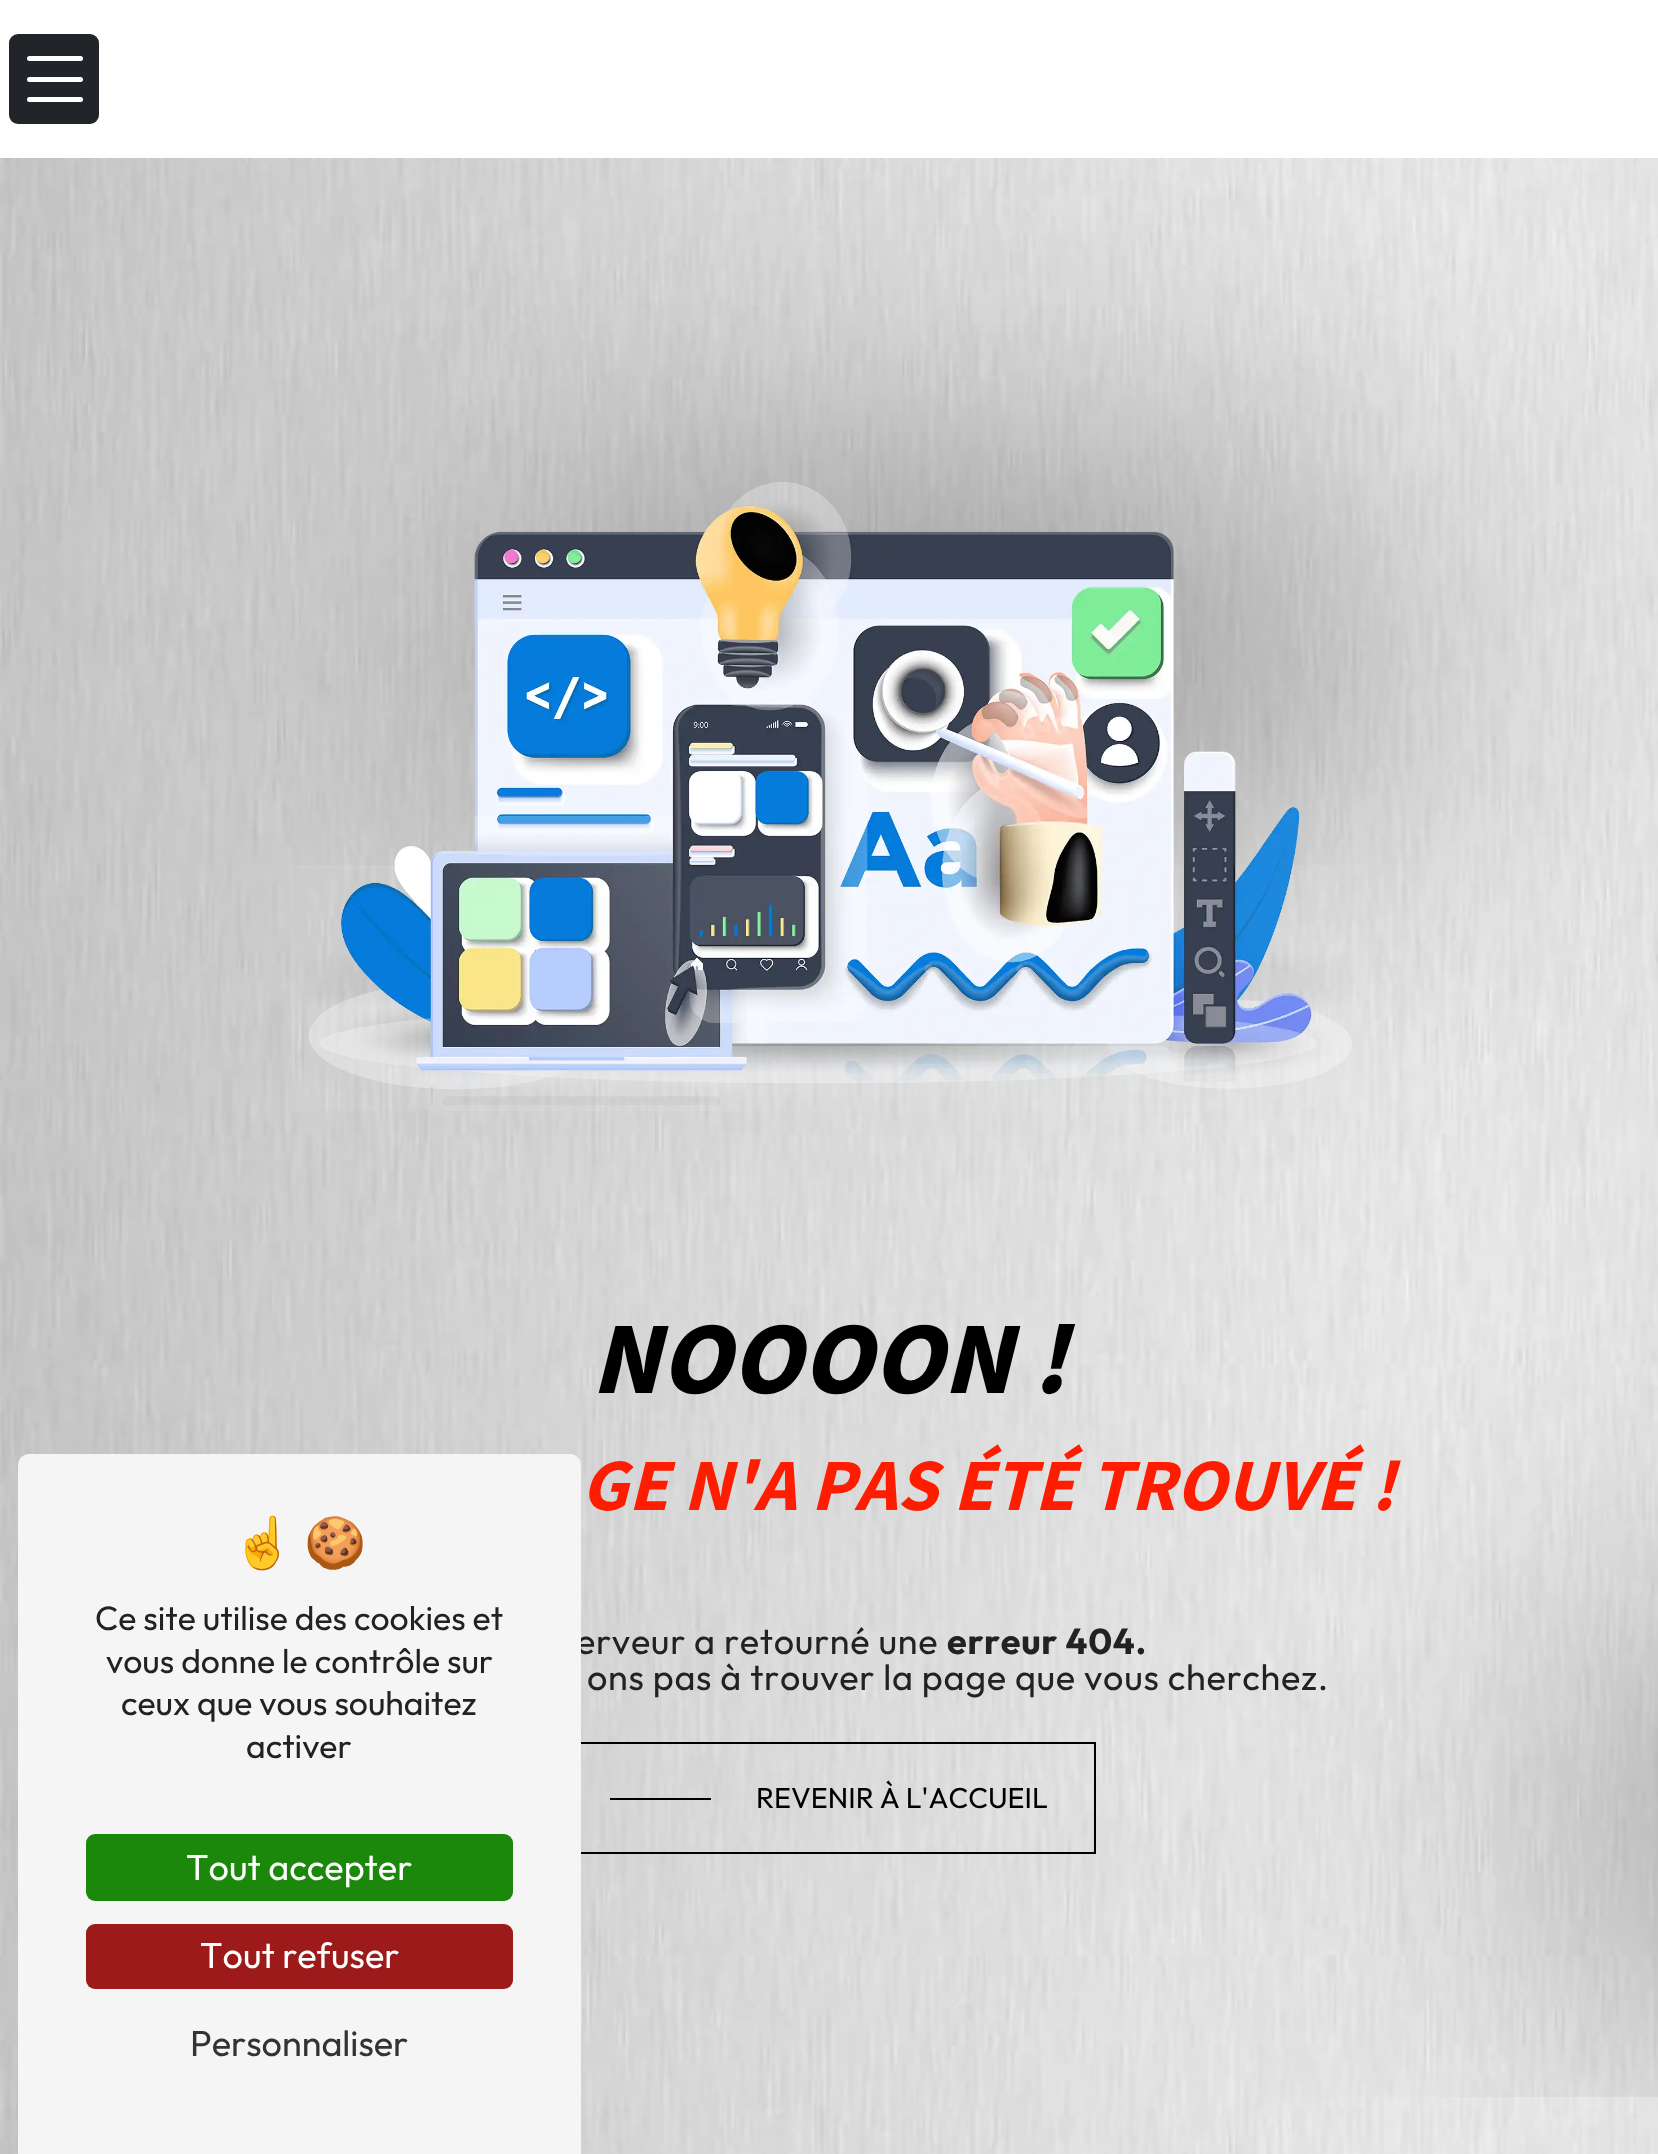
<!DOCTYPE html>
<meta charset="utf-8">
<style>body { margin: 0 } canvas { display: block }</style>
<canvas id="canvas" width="1658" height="2154"></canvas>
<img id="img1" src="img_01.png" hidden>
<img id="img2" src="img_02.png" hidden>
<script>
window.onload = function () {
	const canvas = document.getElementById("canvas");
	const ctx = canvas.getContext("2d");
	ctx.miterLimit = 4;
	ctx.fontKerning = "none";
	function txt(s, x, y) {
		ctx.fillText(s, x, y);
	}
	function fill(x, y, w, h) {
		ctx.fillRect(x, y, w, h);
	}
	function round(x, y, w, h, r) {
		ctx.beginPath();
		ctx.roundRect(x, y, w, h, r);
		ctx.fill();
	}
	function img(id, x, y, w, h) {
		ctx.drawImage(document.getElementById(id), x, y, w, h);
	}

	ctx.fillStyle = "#FFFFFF";
	fill(0, 0, 1658, 2154);
	img("img1", 0, 158, 1658, 1996);
	ctx.fillStyle = "rgba(0, 0, 0, 0.5)";
	ctx.filter = "blur(180px)";
	ctx.beginPath();
	ctx.roundRect(497, 545, 900, 225, 112.5);
	ctx.fill();
	ctx.filter = "none";
	ctx.fillStyle = "#212529";
	round(9, 34, 90, 90, 9);
	ctx.fillStyle = "#FFFFFF";
	round(27, 77, 56, 5, 2.5);
	round(27, 56, 56, 5, 2.5);
	round(27, 97, 56, 5, 2.5);
	ctx.save();
	ctx.beginPath();
	ctx.rect(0, 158, 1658, 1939);
	ctx.clip();
	ctx.fillStyle = "rgba(0, 0, 0, 0.5)";
	ctx.filter = "blur(180px)";
	ctx.beginPath();
	ctx.roundRect(1575, 1710, 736, 225, 112.5);
	ctx.fill();
	ctx.filter = "none";
	ctx.restore();
	img("img2", 290, 482, 1078, 629);
	ctx.strokeStyle = "#000000";
	ctx.lineWidth = 2;
	ctx.strokeRect(564, 1743, 531, 110);
	ctx.fillStyle = "#000000";
	fill(610, 1798, 101, 2);
	ctx.font = "italic 900 90px Noto Sans JP";
	txt("NOOOON !", 591, 1393);
	ctx.font = "italic 800 64.75px Noto Sans JP";
	ctx.fillStyle = "#FE1D01";
	txt("GE N'A PAS", 581, 1510);
	txt("ÉTÉ TROUVÉ !", 953, 1510);
	ctx.letterSpacing = "0.7px";
	ctx.font = "36px Outfit";
	ctx.fillStyle = "#222222";
	txt("erveur a retourné une", 576, 1654);
	ctx.fillStyle = "#F5F5F5";
	ctx.beginPath();
	ctx.moveTo(29, 1454);
	ctx.lineTo(570, 1454);
	ctx.bezierCurveTo(576, 1454, 581, 1459, 581, 1465);
	ctx.lineTo(581, 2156);
	ctx.lineTo(18, 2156);
	ctx.lineTo(18, 1465);
	ctx.bezierCurveTo(18, 1459, 23, 1454, 29, 1454);
	ctx.closePath();
	ctx.fill();
	ctx.letterSpacing = "0px";
	ctx.font = "33.75px Outfit";
	ctx.fillStyle = "#222222";
	txt("activer", 246, 1758);
	txt("ceux que vous souhaitez", 121, 1715);
	txt("vous donne le contrôle sur", 106, 1673);
	txt("Ce site utilise des cookies et", 95, 1630);
	ctx.font = "36px Outfit";
	ctx.fillStyle = "#333333";
	txt("Personnaliser", 190, 2056);
	ctx.fillStyle = "#9C1A1A";
	round(86, 1924, 427, 65, 9);
	ctx.fillStyle = "#FFFFFF";
	txt("Tout refuser", 200, 1968);
	ctx.fillStyle = "#1B870B";
	round(86, 1834, 427, 67, 9);
	ctx.fillStyle = "#FFFFFF";
	txt("Tout accepter", 186, 1880);
	ctx.font = "50px Noto Color Emoji";
	ctx.fillStyle = "#222222";
	txt("🍪", 304, 1560);
	txt("☝", 232, 1560);
	ctx.letterSpacing = "0.7px";
	ctx.font = "bold 36px Outfit";
	txt("erreur 404.", 947, 1654);
	ctx.font = "36px Outfit";
	txt("ons pas à trouver la page que vous cherchez.", 587, 1690);
	ctx.letterSpacing = "0px";
	ctx.font = "28.75px Outfit";
	ctx.fillStyle = "#000000";
	txt("REVENIR À L'ACCUEIL", 756, 1808);
};
</script>
